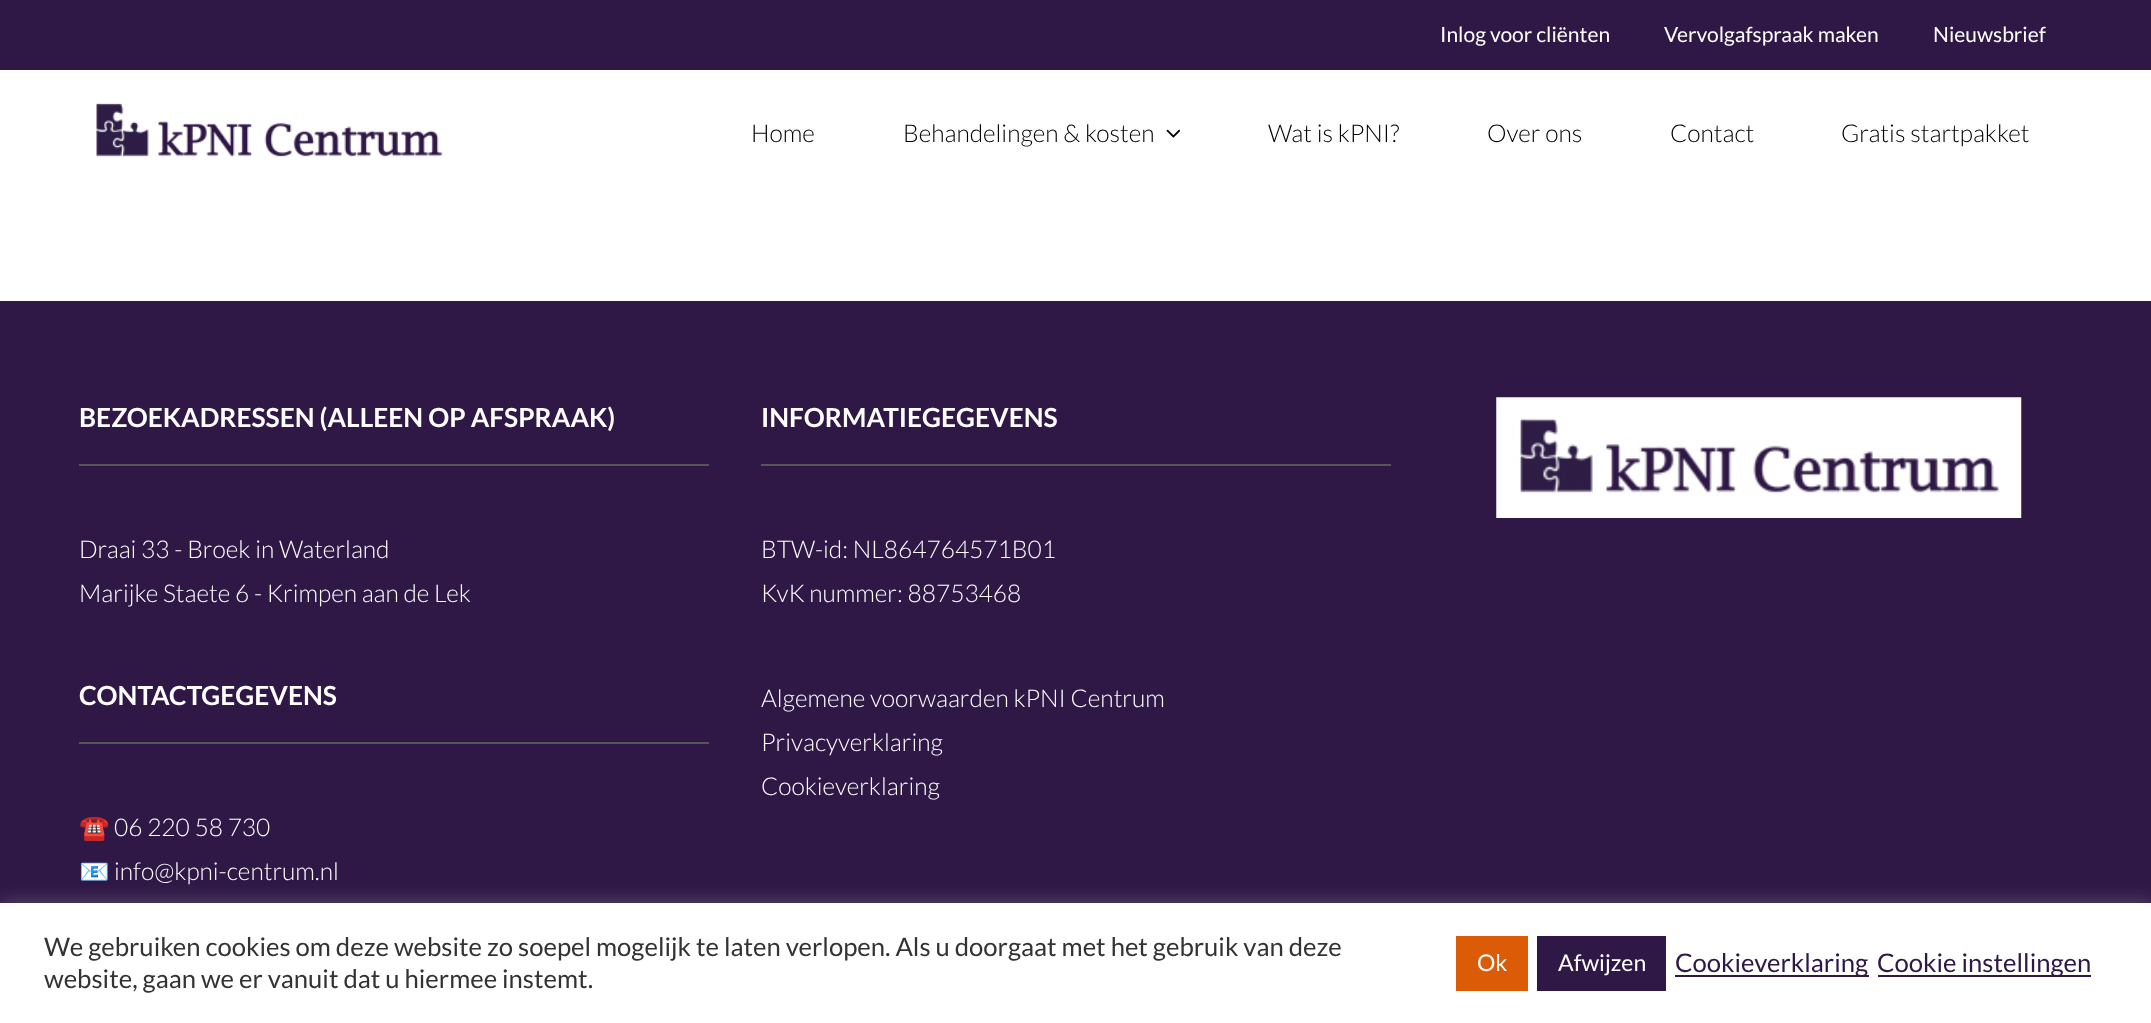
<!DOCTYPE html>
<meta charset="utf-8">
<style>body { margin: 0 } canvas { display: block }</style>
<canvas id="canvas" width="2151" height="1023"></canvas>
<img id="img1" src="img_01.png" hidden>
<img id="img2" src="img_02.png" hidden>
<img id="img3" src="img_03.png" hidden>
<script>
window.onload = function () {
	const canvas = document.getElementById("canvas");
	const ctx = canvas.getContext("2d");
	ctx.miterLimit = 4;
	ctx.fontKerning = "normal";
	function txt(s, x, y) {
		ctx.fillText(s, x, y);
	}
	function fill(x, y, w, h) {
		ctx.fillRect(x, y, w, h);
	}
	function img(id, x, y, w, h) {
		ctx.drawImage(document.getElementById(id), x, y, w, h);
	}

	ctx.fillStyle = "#FFFFFF";
	fill(0, 0, 2151, 1023);
	ctx.fillStyle = "#2F1846";
	fill(0, 0, 2151, 70);
	img("img1", 96, 102, 347, 55);
	img("img2", 1166, 129, 15, 9);
	fill(0, 301, 2151, 602);
	ctx.fillStyle = "#565656";
	fill(79, 464, 630, 2);
	fill(79, 742, 630, 2);
	fill(761, 464, 630, 2);
	img("img3", 1496, 397, 526, 121);
	ctx.fillStyle = "rgba(172, 171, 171, 0.3)";
	ctx.filter = "blur(9px)";
	ctx.beginPath();
	ctx.rect(0, 901, 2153, 121);
	ctx.fill();
	ctx.filter = "none";
	ctx.fillStyle = "#FFFFFF";
	fill(0, 903, 2151, 120);
	ctx.fillStyle = "#DB5B06";
	fill(1456, 936, 72, 55);
	ctx.fillStyle = "#2F1846";
	fill(1537, 936, 129, 55);
	fill(1675, 975, 194, 2);
	fill(1878, 975, 213, 2);
	ctx.font = "21px Lato";
	ctx.fillStyle = "#FFFFFF";
	txt("Inlog voor cliënten", 1440, 42);
	txt("Vervolgafspraak maken", 1664, 42);
	txt("Nieuwsbrief", 1933, 42);
	ctx.font = "300 24.5px Lato";
	ctx.fillStyle = "#000000";
	txt("Home", 751, 142);
	txt("Behandelingen & kosten", 903, 142);
	txt("Wat is kPNI?", 1268, 142);
	txt("Over ons", 1487, 142);
	txt("Contact", 1670, 142);
	txt("Gratis startpakket", 1841, 142);
	ctx.font = "bold 26.25px Lato";
	ctx.fillStyle = "#FFFFFF";
	txt("BEZOEKADRESSEN (ALLEEN OP AFSPRAAK)", 79, 427);
	ctx.font = "300 24.5px Lato";
	txt("Draai 33 - Broek in Waterland", 79, 558);
	txt("Marijke Staete 6 - Krimpen aan de Lek", 79, 602);
	ctx.font = "bold 26.25px Lato";
	txt("CONTACTGEGEVENS", 79, 705);
	ctx.font = "24.5px Noto Color Emoji";
	txt("☎️", 79, 836);
	ctx.font = "300 24.5px Lato";
	txt("06 220 58 730", 114, 836);
	ctx.font = "24.5px Noto Color Emoji";
	txt("📧", 79, 880);
	ctx.font = "300 24.5px Lato";
	txt("info@kpni-centrum.nl", 114, 880);
	ctx.font = "bold 26.25px Lato";
	txt("INFORMATIEGEGEVENS", 761, 427);
	ctx.font = "300 24.5px Lato";
	txt("BTW-id: NL864764571B01", 761, 558);
	txt("KvK nummer: 88753468", 761, 602);
	txt("Algemene voorwaarden kPNI Centrum", 761, 707);
	txt("Privacyverklaring", 761, 751);
	txt("Cookieverklaring", 761, 795);
	ctx.font = "25.67px Lato";
	ctx.fillStyle = "#333333";
	txt("We gebruiken cookies om deze website zo soepel mogelijk te laten verlopen. Als u doorgaat met het gebruik van deze", 44, 956);
	txt("website, gaan we er vanuit dat u hiermee instemt.", 44, 988);
	ctx.font = "23px Lato";
	ctx.fillStyle = "#FFFFFF";
	txt("Ok", 1477, 971);
	txt("Afwijzen", 1558, 971);
	ctx.font = "25.67px Lato";
	ctx.fillStyle = "#2F1846";
	txt("Cookieverklaring", 1675, 972);
	txt("Cookie instellingen", 1877, 972);
};
</script>
